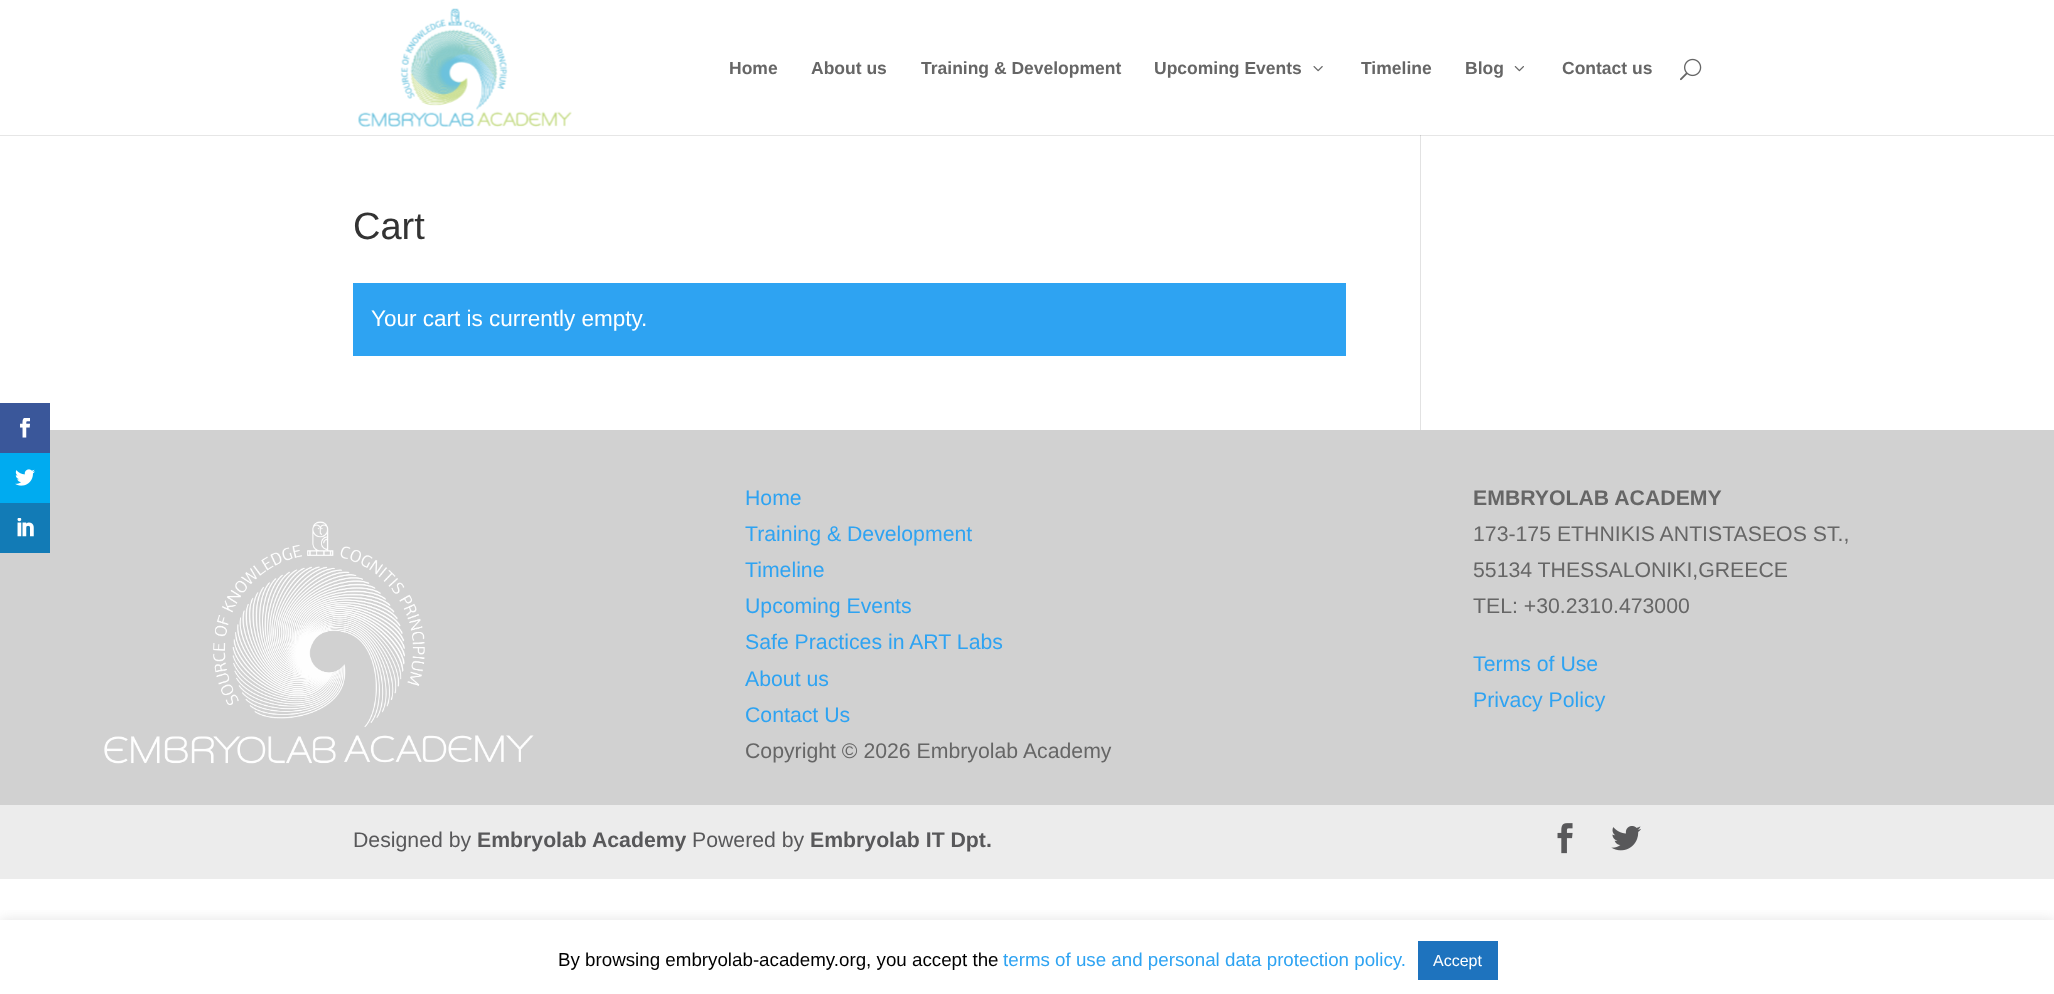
<!DOCTYPE html>
<meta charset="utf-8">
<style>body { margin: 0 } canvas { display: block }</style>
<canvas id="canvas" width="2054" height="994"></canvas>
<img id="img1" src="img_01.png" hidden>
<img id="img2" src="img_02.png" hidden>
<img id="img3" src="img_03.png" hidden>
<img id="img4" src="img_04.png" hidden>
<img id="img5" src="img_05.png" hidden>
<img id="img6" src="img_06.png" hidden>
<img id="img7" src="img_07.png" hidden>
<img id="img8" src="img_08.png" hidden>
<img id="img9" src="img_09.png" hidden>
<img id="img10" src="img_10.png" hidden>
<script>
window.onload = function () {
	const canvas = document.getElementById("canvas");
	const ctx = canvas.getContext("2d");
	ctx.miterLimit = 4;
	ctx.fontKerning = "normal";
	function txt(s, x, y) {
		ctx.fillText(s, x, y);
	}
	function fill(x, y, w, h) {
		ctx.fillRect(x, y, w, h);
	}
	function img(id, x, y, w, h) {
		ctx.drawImage(document.getElementById(id), x, y, w, h);
	}

	ctx.fillStyle = "#FFFFFF";
	fill(0, 0, 2054, 994);
	ctx.fillStyle = "#E6E6E6";
	fill(0, 135, 2054, 1);
	ctx.fillStyle = "#D1D1D1";
	fill(0, 430, 2054, 375);
	ctx.fillStyle = "#3A579A";
	fill(0, 403, 50, 50);
	img("img1", 20, 418, 10, 20);
	ctx.fillStyle = "#00ABF0";
	fill(0, 453, 50, 50);
	img("img2", 15, 469, 20, 17);
	ctx.fillStyle = "#127BB6";
	fill(0, 503, 50, 50);
	img("img3", 17, 518, 17, 19);
	img("img4", 358, 8, 214, 119);
	img("img5", 1313, 66, 10, 6);
	img("img6", 1514, 66, 10, 6);
	img("img7", 1680, 58, 22, 23);
	ctx.fillStyle = "#2EA3F2";
	fill(353, 283, 993, 73);
	ctx.fillStyle = "#E2E2E2";
	fill(1420, 135, 1, 295);
	ctx.fillStyle = "#CBCBCB";
	fill(1420, 135, 1, 1);
	img("img8", 104, 521, 430, 243);
	ctx.fillStyle = "#ECECEC";
	fill(0, 805, 2054, 74);
	img("img9", 1557, 823, 16, 31);
	img("img10", 1611, 826, 30, 25);
	ctx.save();
	ctx.beginPath();
	ctx.rect(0, 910, 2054, 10);
	ctx.clip();
	ctx.fillStyle = "rgba(172, 171, 171, 0.3)";
	ctx.filter = "blur(6px)";
	ctx.beginPath();
	ctx.rect(0, 919, 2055, 75);
	ctx.fill();
	ctx.filter = "none";
	ctx.restore();
	ctx.fillStyle = "#1E73BE";
	fill(1418, 941, 80, 39);
	ctx.font = "bold 17.5px Liberation Sans";
	ctx.fillStyle = "#666666";
	txt("Home", 729, 74);
	txt("About us", 811, 74);
	txt("Training & Development", 921, 74);
	txt("Upcoming Events", 1154, 74);
	txt("Timeline", 1361, 74);
	txt("Blog", 1465, 74);
	txt("Contact us", 1562, 74);
	ctx.font = "38px Liberation Sans";
	ctx.fillStyle = "#333333";
	txt("Cart", 353, 239);
	ctx.font = "22.5px Liberation Sans";
	ctx.fillStyle = "#FFFFFF";
	txt("Your cart is currently empty.", 371, 326);
	ctx.font = "21.25px Liberation Sans";
	ctx.fillStyle = "#2EA3F2";
	txt("Home", 745, 505);
	txt("Training & Development", 745, 541);
	txt("Timeline", 745, 577);
	txt("Upcoming Events", 745, 613);
	txt("Safe Practices in ART Labs", 745, 649);
	txt("About us", 745, 686);
	txt("Contact Us", 745, 722);
	ctx.fillStyle = "#666666";
	txt("Copyright © 2026 Embryolab Academy", 745, 758);
	ctx.font = "bold 21.25px Liberation Sans";
	txt("EMBRYOLAB ACADEMY", 1473, 505);
	ctx.font = "21.25px Liberation Sans";
	txt("173-175 ETHNIKIS ANTISTASEOS ST.,", 1473, 541);
	txt("55134 THESSALONIKI,GREECE", 1473, 577);
	txt("TEL: +30.2310.473000", 1473, 613);
	ctx.fillStyle = "#2EA3F2";
	txt("Terms of Use", 1473, 671);
	txt("Privacy Policy", 1473, 707);
	ctx.fillStyle = "#58585A";
	txt("Designed by", 353, 847);
	ctx.font = "bold 21.25px Liberation Sans";
	txt("Embryolab Academy", 477, 847);
	ctx.font = "21.25px Liberation Sans";
	txt("Powered by", 692, 847);
	ctx.font = "bold 21.25px Liberation Sans";
	txt("Embryolab IT Dpt.", 810, 847);
	ctx.font = "18.75px Liberation Sans";
	ctx.fillStyle = "#000000";
	txt("By browsing embryolab-academy.org, you accept the", 558, 966);
	ctx.fillStyle = "#2EA3F2";
	txt("terms of use and personal data protection policy.", 1003, 966);
	ctx.font = "16px Liberation Sans";
	ctx.fillStyle = "#FFFFFF";
	txt("Accept", 1433, 966);
};
</script>
